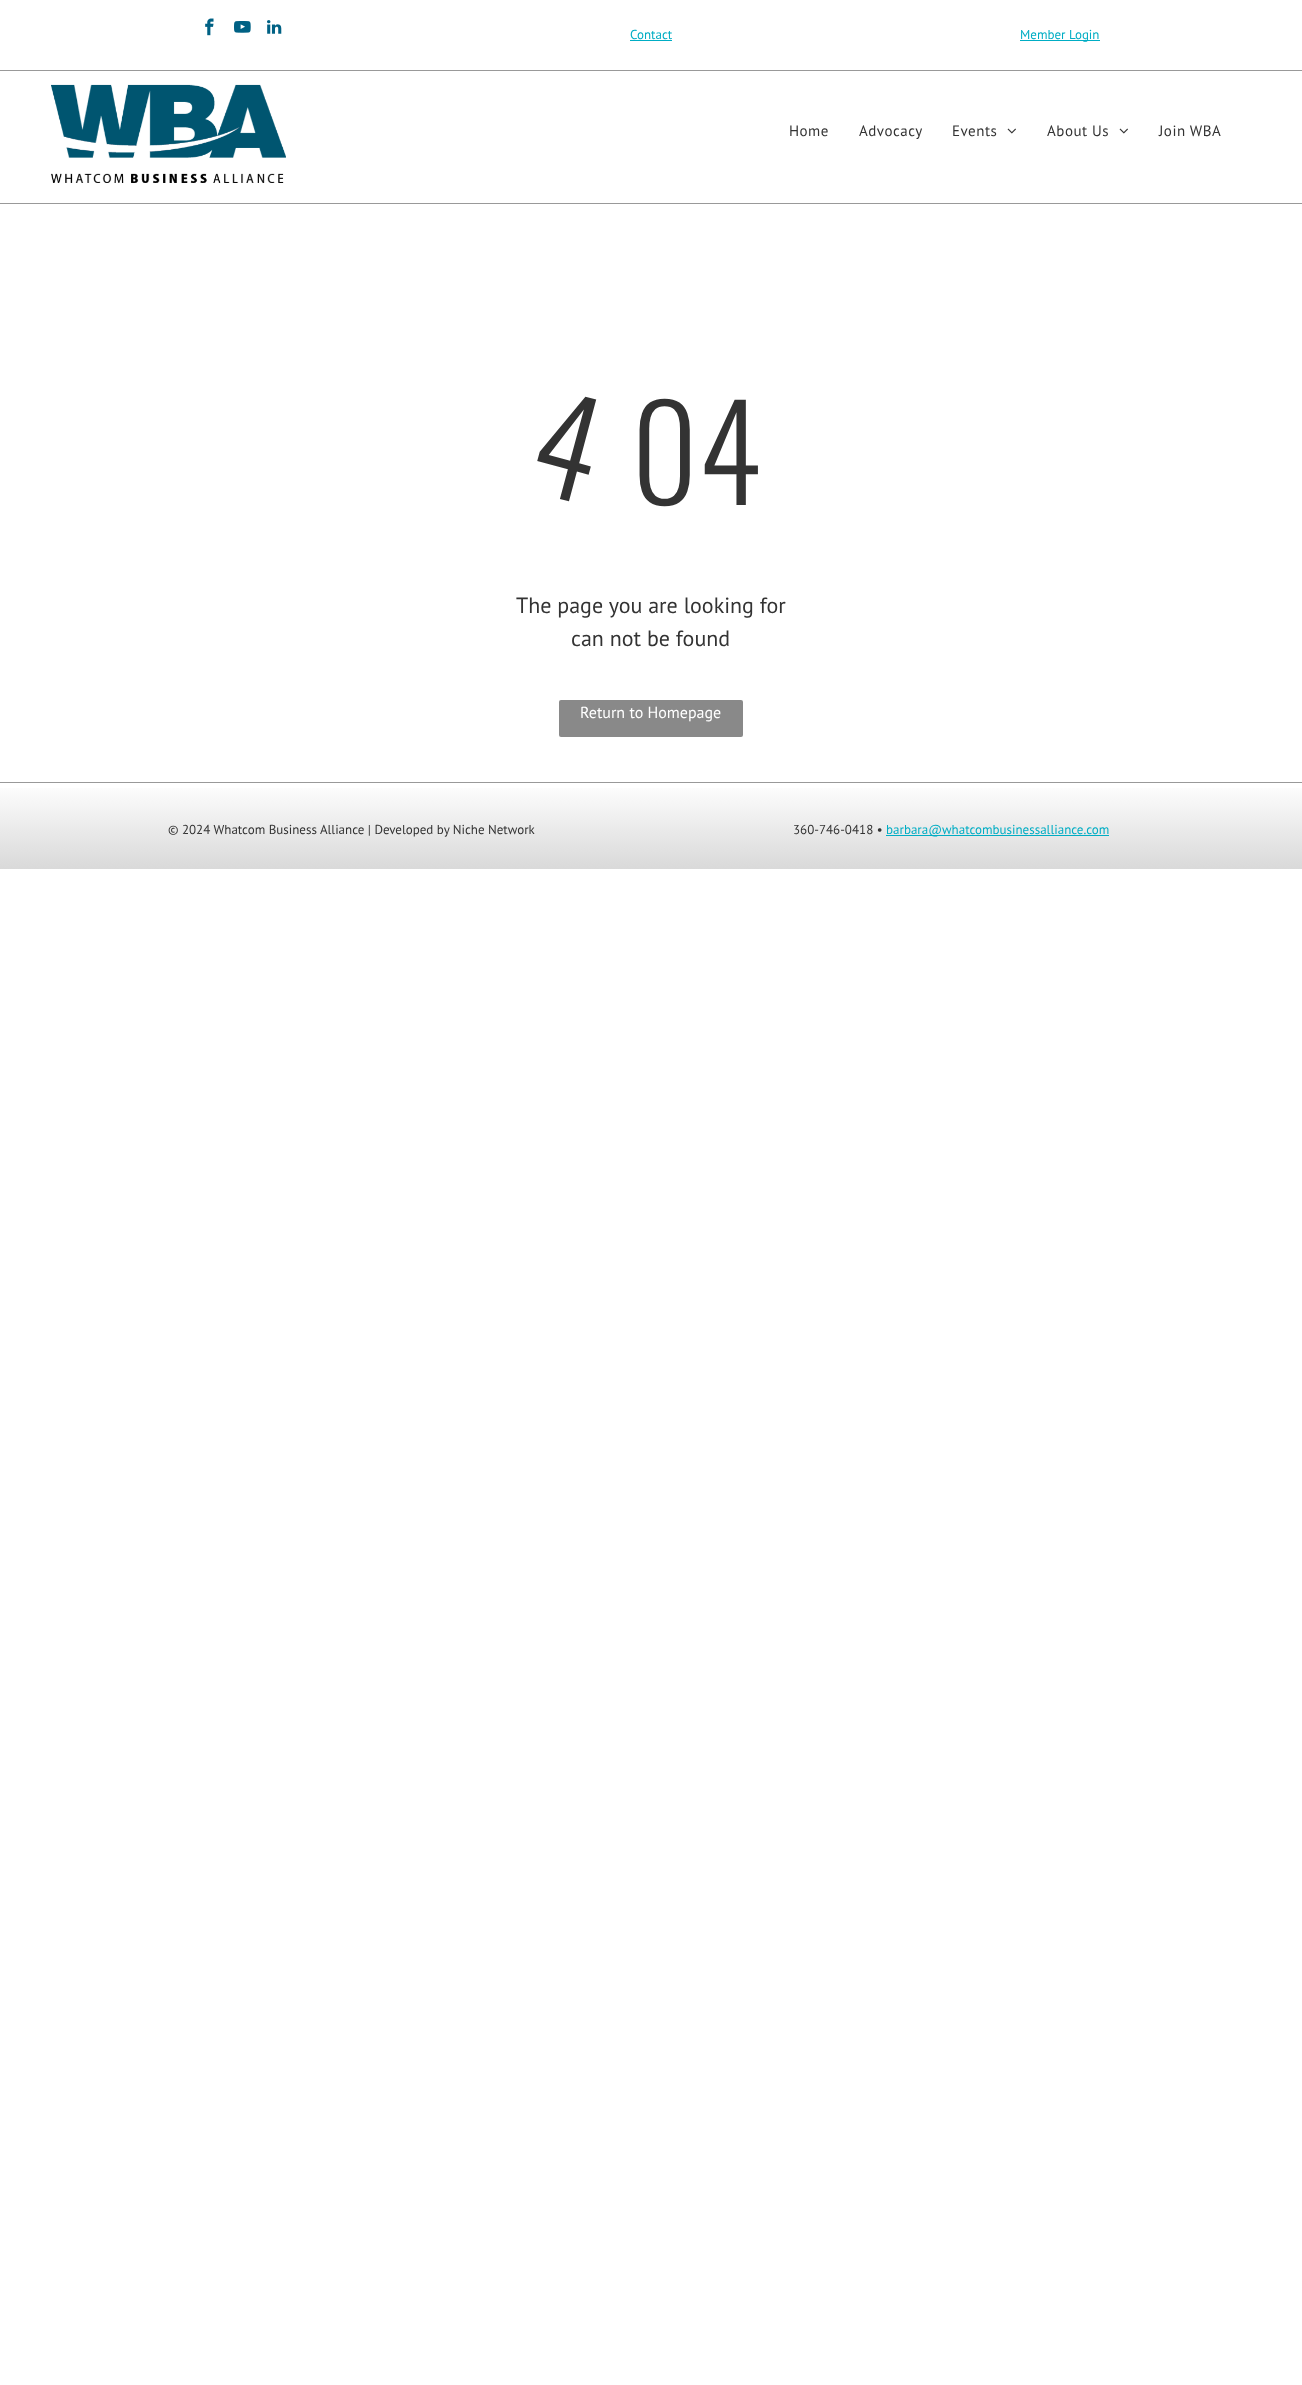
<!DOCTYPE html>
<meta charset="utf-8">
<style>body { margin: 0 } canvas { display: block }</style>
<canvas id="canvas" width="1302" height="2385"></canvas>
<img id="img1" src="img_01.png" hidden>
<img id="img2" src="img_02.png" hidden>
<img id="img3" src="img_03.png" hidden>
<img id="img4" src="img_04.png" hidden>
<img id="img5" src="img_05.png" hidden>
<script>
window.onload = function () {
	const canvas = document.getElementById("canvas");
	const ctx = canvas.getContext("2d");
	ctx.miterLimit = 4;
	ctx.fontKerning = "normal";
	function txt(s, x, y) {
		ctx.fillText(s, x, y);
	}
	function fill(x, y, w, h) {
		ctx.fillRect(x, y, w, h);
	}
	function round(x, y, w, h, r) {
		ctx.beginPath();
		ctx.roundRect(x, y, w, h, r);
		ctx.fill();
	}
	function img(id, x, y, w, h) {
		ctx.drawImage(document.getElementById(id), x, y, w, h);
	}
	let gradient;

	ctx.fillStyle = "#FFFFFF";
	fill(0, 0, 1302, 2385);
	ctx.fillStyle = "#999999";
	fill(0, 203, 1302, 1);
	fill(0, 70, 1302, 1);
	img("img1", 205, 18, 9, 18);
	img("img2", 234, 21, 17, 12);
	img("img3", 267, 20, 15, 14);
	ctx.fillStyle = "#00ADC4";
	fill(630, 40, 42, 1);
	fill(1020, 40, 80, 1);
	img("img4", 51, 84, 235, 99);
	img("img5", 1007, 128, 9, 6);
	img("img5", 1119, 128, 9, 6);
	ctx.fillStyle = "#898989";
	round(559, 700, 184, 37, 2);
	gradient = ctx.createLinearGradient(651, 869, 651, 782);
	gradient.addColorStop(0, "#D9D9D9");
	gradient.addColorStop(1, "#FFFFFF");
	ctx.fillStyle = gradient;
	fill(0, 788, 1302, 81);
	ctx.fillStyle = "#999999";
	fill(0, 782, 1302, 1);
	ctx.fillStyle = "#00ADC4";
	fill(886, 835, 223, 1);
	ctx.font = "13px PT Sans";
	txt("Contact", 630, 39);
	txt("Member Login", 1020, 39);
	ctx.letterSpacing = "0.5px";
	ctx.font = "15px PT Sans";
	ctx.fillStyle = "#333333";
	txt("Home", 789, 136);
	txt("Advocacy", 859, 136);
	txt("Events", 952, 136);
	txt("About Us", 1047, 136);
	txt("Join WBA", 1159, 136);
	ctx.letterSpacing = "0px";
	ctx.font = "300 130px Oswald";
	ctx.save();
	ctx.translate(523, 489);
	ctx.rotate(15 * Math.PI / 180);
	ctx.fillText("4", 0, 0);
	ctx.restore();
	txt("04", 631, 505);
	ctx.font = "22px PT Sans";
	txt("The page you are looking for", 516, 613);
	txt("can not be found", 571, 646);
	ctx.font = "16px PT Sans";
	ctx.fillStyle = "#FFFFFF";
	txt("Return to Homepage", 580, 718);
	ctx.font = "13px PT Sans";
	ctx.fillStyle = "#333333";
	txt("© 2024 Whatcom Business Alliance | Developed by Niche Network", 168, 834);
	txt("360-746-0418 •", 793, 834);
	ctx.fillStyle = "#00ADC4";
	txt("barbara@whatcombusinessalliance.com", 886, 834);
};
</script>
